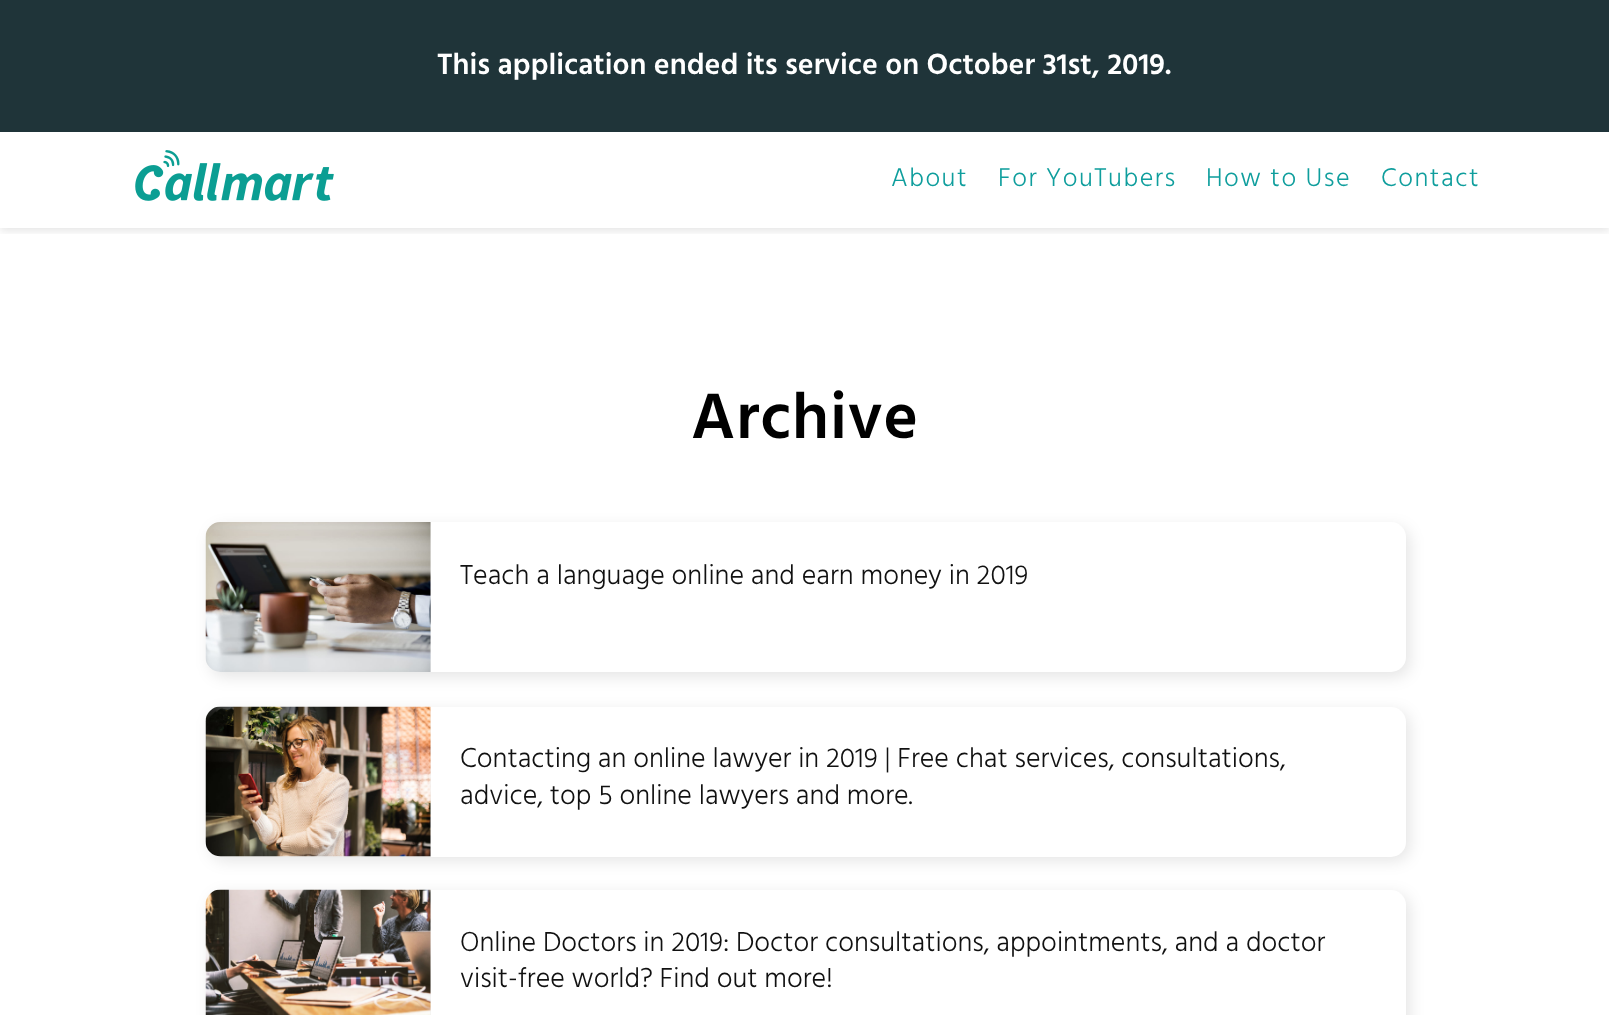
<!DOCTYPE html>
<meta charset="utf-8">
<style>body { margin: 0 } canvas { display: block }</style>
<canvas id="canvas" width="1609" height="1015"></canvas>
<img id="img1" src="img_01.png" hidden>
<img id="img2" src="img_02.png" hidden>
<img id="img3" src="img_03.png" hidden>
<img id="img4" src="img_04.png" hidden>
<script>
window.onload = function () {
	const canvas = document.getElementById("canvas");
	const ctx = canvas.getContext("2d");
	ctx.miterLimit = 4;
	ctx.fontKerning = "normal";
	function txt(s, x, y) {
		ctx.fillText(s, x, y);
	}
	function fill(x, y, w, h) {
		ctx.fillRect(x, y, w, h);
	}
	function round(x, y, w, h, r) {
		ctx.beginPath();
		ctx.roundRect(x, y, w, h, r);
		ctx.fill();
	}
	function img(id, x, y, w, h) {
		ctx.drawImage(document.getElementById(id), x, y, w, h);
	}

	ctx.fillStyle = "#FFFFFF";
	fill(0, 0, 1609, 1015);
	ctx.save();
	ctx.beginPath();
	ctx.rect(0, 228, 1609, 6);
	ctx.clip();
	ctx.fillStyle = "rgba(0, 0, 0, 0.1)";
	ctx.filter = "blur(4px)";
	ctx.beginPath();
	ctx.rect(0, 135, 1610, 96);
	ctx.fill();
	ctx.filter = "none";
	ctx.restore();
	ctx.fillStyle = "#1F3439";
	fill(0, 0, 1609, 132);
	img("img1", 135, 150, 199, 51);
	ctx.fillStyle = "rgba(0, 0, 0, 0.1)";
	ctx.filter = "blur(7.5px)";
	ctx.beginPath();
	ctx.roundRect(210, 527, 1200, 150, 15);
	ctx.fill();
	ctx.filter = "none";
	ctx.fillStyle = "#FFFFFF";
	round(206, 522, 1200, 150, 15);
	ctx.fillStyle = "#EEEEEE";
	ctx.beginPath();
	ctx.roundRect(206, 522, 225, 150, [15, 0, 0, 15]);
	ctx.fill();
	img("img2", 205, 522, 226, 150);
	ctx.fillStyle = "rgba(0, 0, 0, 0.1)";
	ctx.filter = "blur(7.5px)";
	ctx.beginPath();
	ctx.roundRect(210, 711, 1200, 150, 15);
	ctx.fill();
	ctx.filter = "none";
	ctx.fillStyle = "#FFFFFF";
	round(206, 707, 1200, 150, 15);
	ctx.fillStyle = "#EEEEEE";
	ctx.beginPath();
	ctx.roundRect(206, 707, 225, 150, [15, 0, 0, 15]);
	ctx.fill();
	img("img3", 205, 706, 226, 151);
	ctx.fillStyle = "rgba(0, 0, 0, 0.1)";
	ctx.filter = "blur(7.5px)";
	ctx.beginPath();
	ctx.roundRect(210, 894, 1200, 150, 15);
	ctx.fill();
	ctx.filter = "none";
	ctx.fillStyle = "#FFFFFF";
	round(206, 890, 1200, 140, 15);
	ctx.fillStyle = "#EEEEEE";
	ctx.beginPath();
	ctx.moveTo(221, 890);
	ctx.lineTo(431, 890);
	ctx.lineTo(431, 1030);
	ctx.lineTo(221, 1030);
	ctx.bezierCurveTo(212.5, 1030, 206, 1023.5, 206, 1015);
	ctx.lineTo(206, 905);
	ctx.bezierCurveTo(206, 896.5, 212.5, 890, 221, 890);
	ctx.closePath();
	ctx.fill();
	img("img4", 205, 889, 226, 126);
	ctx.font = "600 30px Hind";
	ctx.fillStyle = "#FFFFFF";
	txt("This application ended its service on October 31st, 2019.", 437, 74);
	ctx.letterSpacing = "1.5px";
	ctx.font = "300 26.25px Hind";
	ctx.fillStyle = "#0F9E9D";
	txt("About", 891, 186);
	txt("For YouTubers", 998, 186);
	txt("How to Use", 1206, 186);
	txt("Contact", 1381, 186);
	ctx.letterSpacing = "1px";
	ctx.font = "600 65.5px Hind";
	ctx.fillStyle = "#000000";
	txt("Archive", 691, 438);
	ctx.letterSpacing = "0px";
	ctx.font = "300 28.1px Hind";
	ctx.fillStyle = "#111111";
	txt("Teach a language online and earn money in 2019", 460, 584);
	txt("Contacting an online lawyer in 2019 | Free chat services, consultations,", 460, 767);
	txt("advice, top 5 online lawyers and more.", 460, 804);
	txt("Online Doctors in 2019: Doctor consultations, appointments, and a doctor", 460, 951);
	txt("visit-free world? Find out more!", 460, 987);
};
</script>
